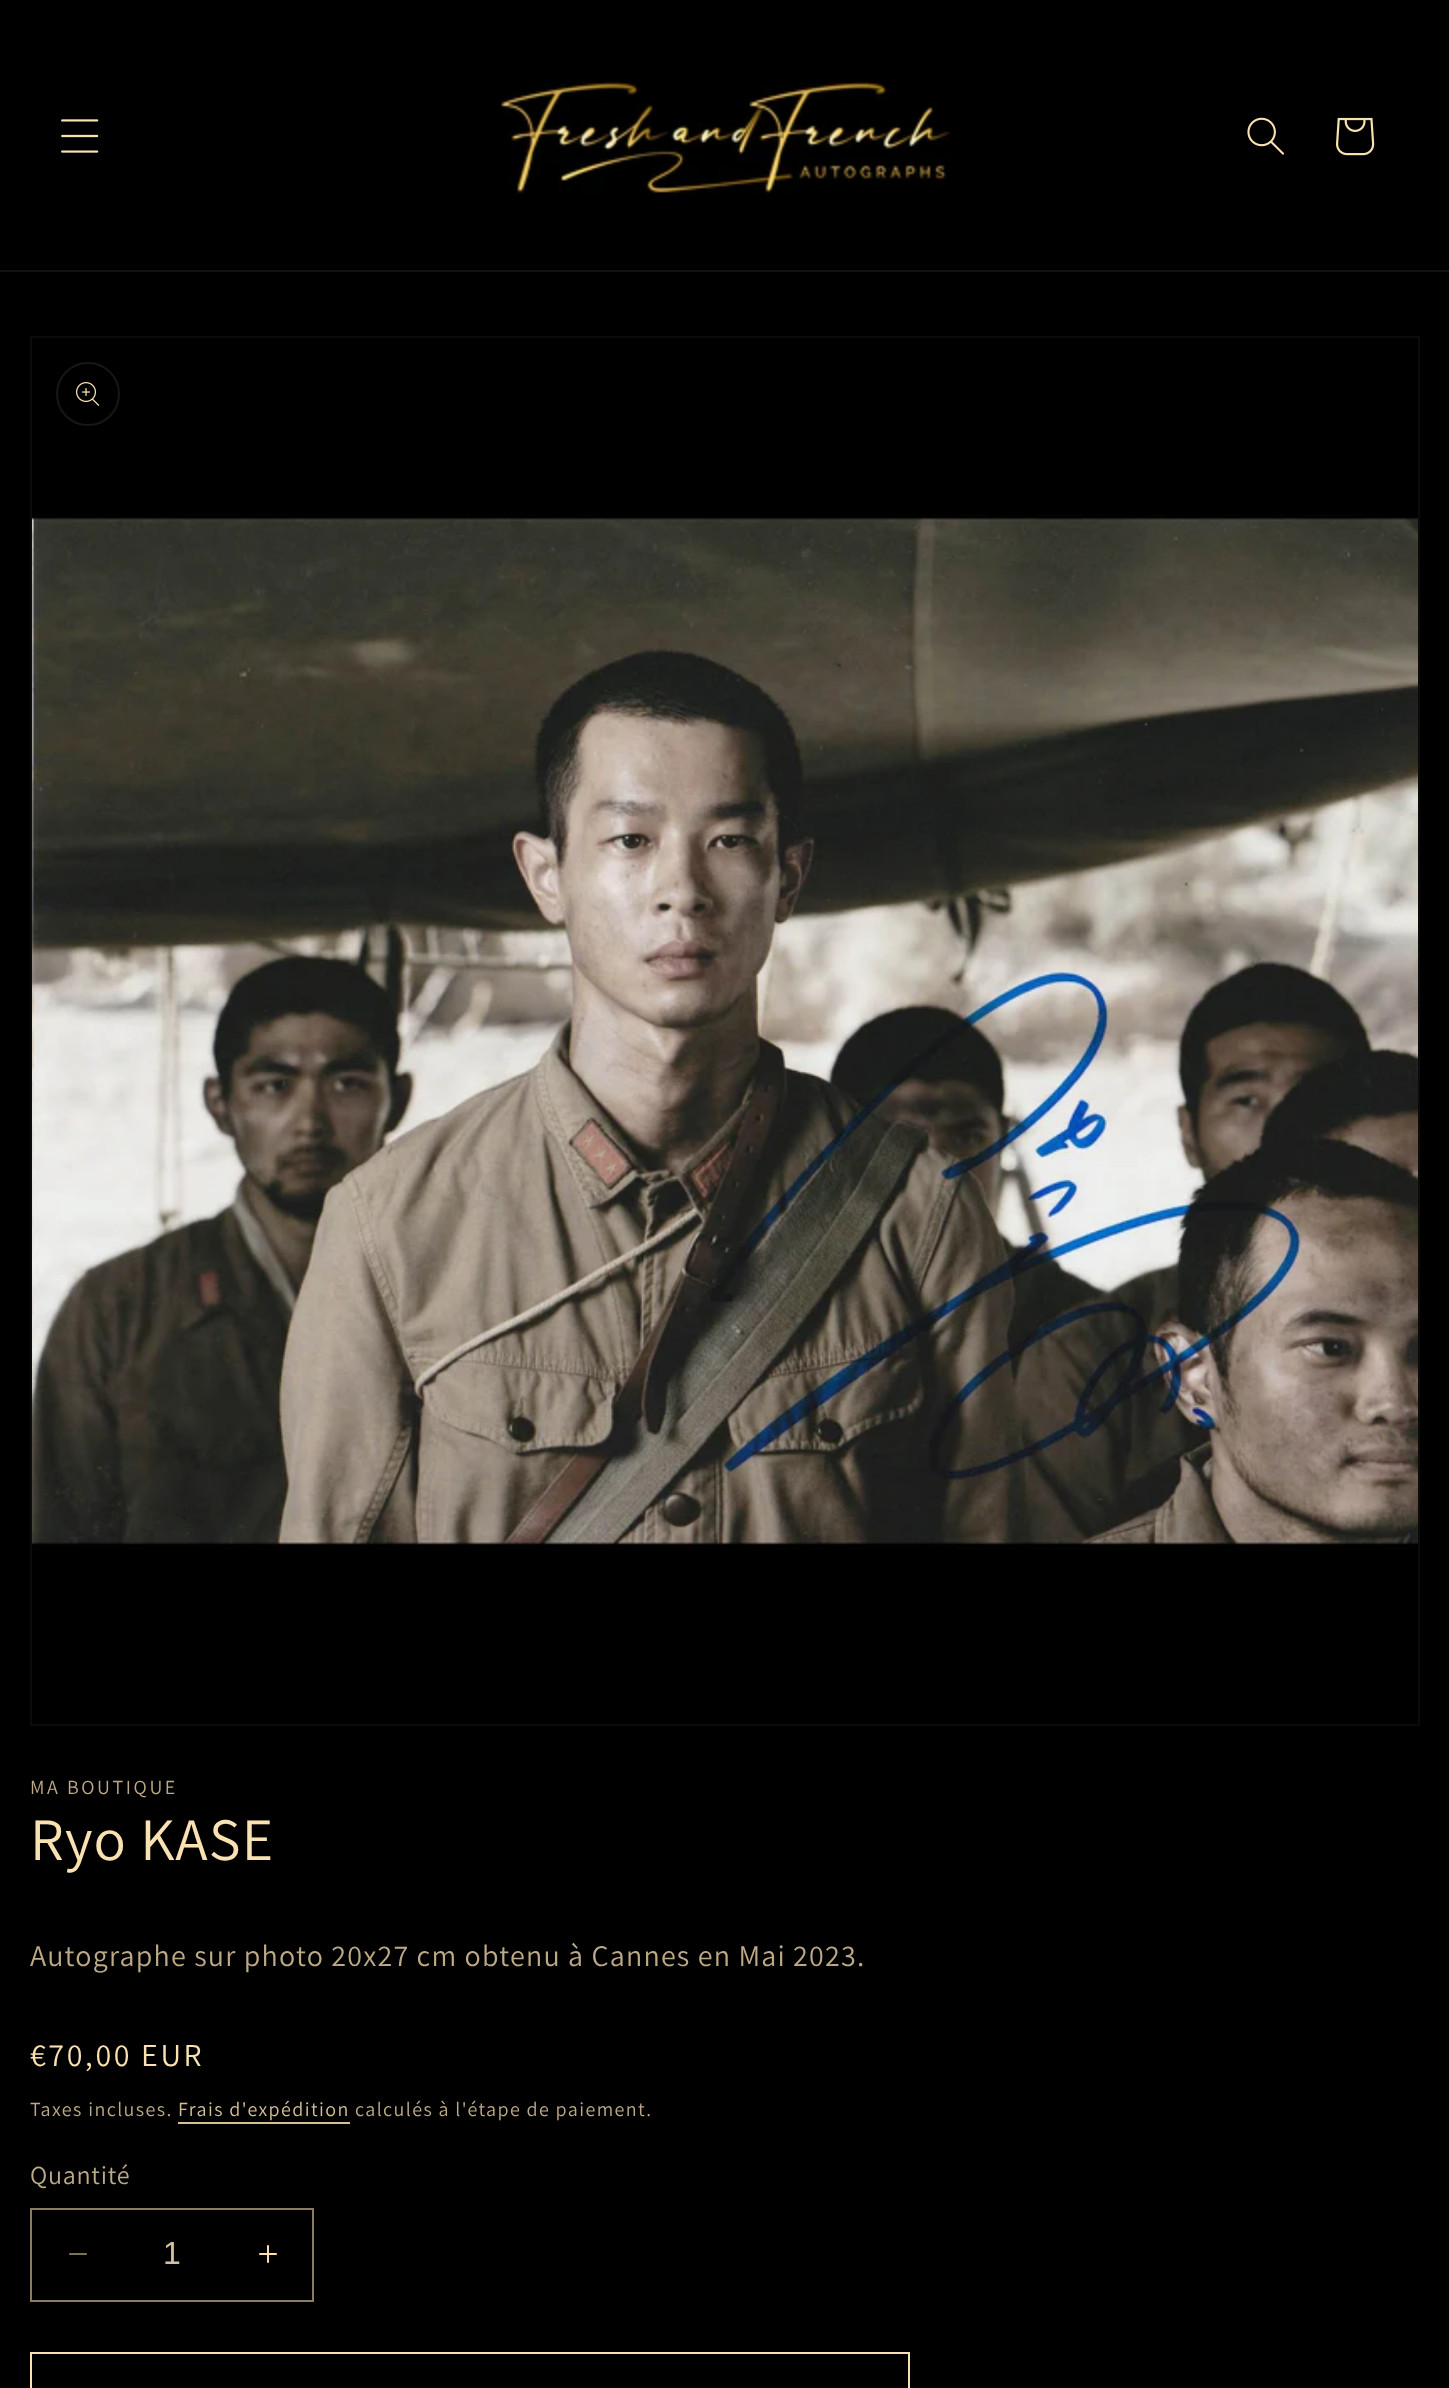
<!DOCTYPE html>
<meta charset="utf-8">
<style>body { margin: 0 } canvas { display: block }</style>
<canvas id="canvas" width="1449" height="2388"></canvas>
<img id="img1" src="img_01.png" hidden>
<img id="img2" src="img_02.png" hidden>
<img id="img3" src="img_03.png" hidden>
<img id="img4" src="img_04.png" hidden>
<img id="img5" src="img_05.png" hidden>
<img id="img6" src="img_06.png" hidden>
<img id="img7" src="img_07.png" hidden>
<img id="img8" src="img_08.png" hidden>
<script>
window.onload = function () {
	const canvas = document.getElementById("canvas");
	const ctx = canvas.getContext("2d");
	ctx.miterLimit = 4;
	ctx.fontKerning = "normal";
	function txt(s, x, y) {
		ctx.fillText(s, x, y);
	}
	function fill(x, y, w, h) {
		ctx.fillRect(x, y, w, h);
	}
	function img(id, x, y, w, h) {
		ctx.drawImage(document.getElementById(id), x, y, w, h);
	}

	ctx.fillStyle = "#000000";
	fill(0, 0, 1449, 2388);
	ctx.fillStyle = "#14120E";
	fill(0, 270, 1449, 2);
	img("img1", 61, 119, 38, 34);
	img("img2", 499, 81, 452, 115);
	img("img3", 1247, 117, 37, 38);
	img("img4", 1336, 117, 39, 39);
	ctx.strokeStyle = "#0D0B09";
	ctx.lineWidth = 2;
	ctx.strokeRect(31, 337, 1388, 1388);
	ctx.beginPath();
	ctx.arc(88, 394, 31, 0, Math.PI * 2);
	ctx.strokeStyle = "#191712";
	ctx.stroke();
	img("img5", 76, 382, 24, 24);
	img("img6", 32, 514, 1386, 1036);
	ctx.fillStyle = "#D5BF96";
	fill(178, 2122, 172, 2);
	img("img7", 69, 2253, 18, 2);
	img("img8", 259, 2245, 18, 18);
	ctx.strokeStyle = "#8A7C61";
	ctx.strokeRect(31, 2209, 282, 92);
	ctx.strokeStyle = "#FAE1B1";
	ctx.strokeRect(31, 2353, 878, 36);
	ctx.letterSpacing = "2.6px";
	ctx.font = "20px Assistant";
	ctx.fillStyle = "#BCA985";
	txt("MA BOUTIQUE", 30, 1794);
	ctx.letterSpacing = "1.2px";
	ctx.font = "60px Assistant";
	ctx.fillStyle = "#FAE1B1";
	txt("Ryo KASE", 30, 1860);
	ctx.font = "30px Assistant";
	ctx.fillStyle = "#BCA985";
	txt("Autographe sur photo 20x27 cm obtenu à Cannes en Mai 2023.", 30, 1966);
	ctx.letterSpacing = "2.6px";
	ctx.font = "32px Assistant";
	ctx.fillStyle = "#FAE1B1";
	txt("€70,00 EUR", 30, 2066);
	ctx.letterSpacing = "1.4px";
	ctx.font = "20px Assistant";
	ctx.fillStyle = "#BCA985";
	txt("Taxes incluses.", 30, 2116);
	ctx.fillStyle = "#D5BF96";
	txt("Frais d'expédition", 178, 2116);
	ctx.fillStyle = "#BCA985";
	txt("calculés à l'étape de paiement.", 355, 2116);
	ctx.letterSpacing = "0.75px";
	ctx.font = "26px Assistant";
	txt("Quantité", 30, 2184);
	ctx.letterSpacing = "0px";
	ctx.font = "32px Liberation Sans";
	ctx.fillStyle = "#D5BF96";
	txt("1", 163, 2264);
};
</script>
